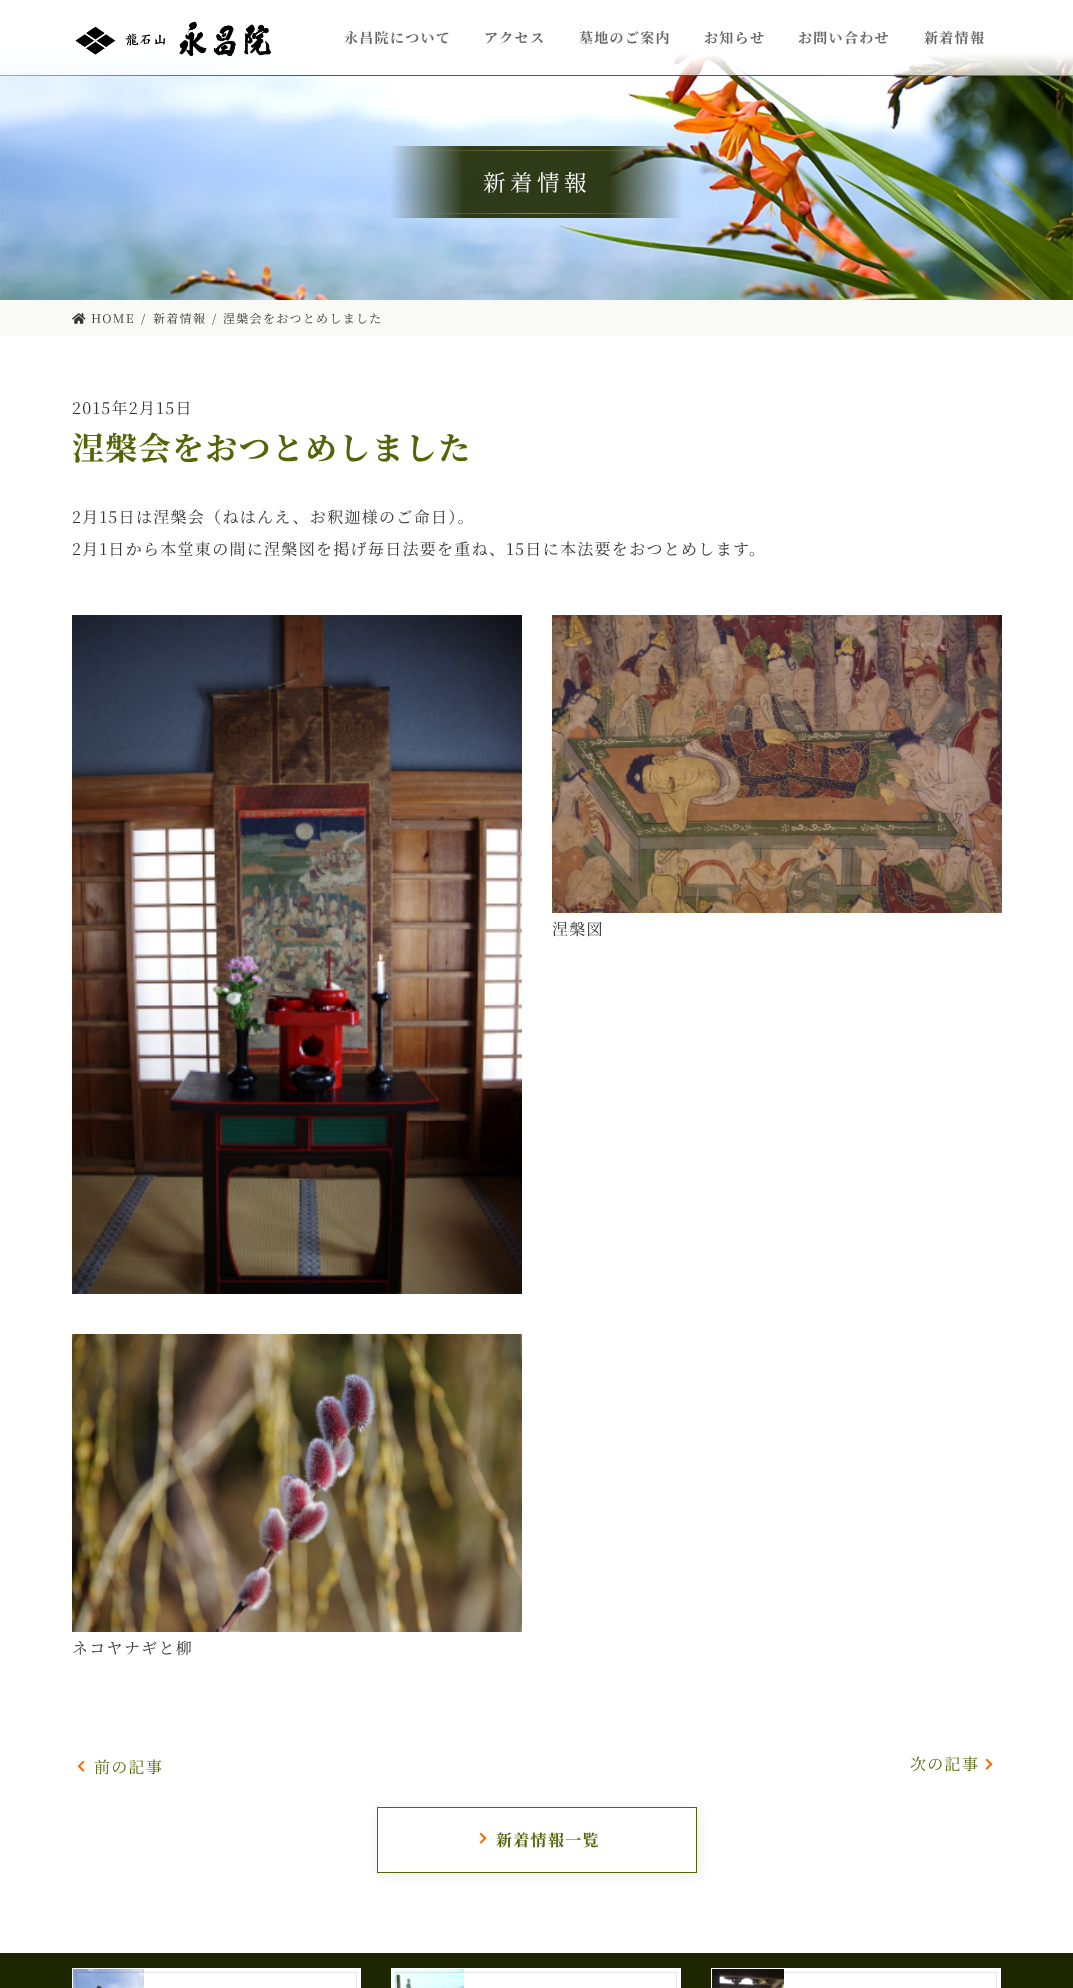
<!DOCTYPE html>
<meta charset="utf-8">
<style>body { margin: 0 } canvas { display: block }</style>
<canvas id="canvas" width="1073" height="1988"></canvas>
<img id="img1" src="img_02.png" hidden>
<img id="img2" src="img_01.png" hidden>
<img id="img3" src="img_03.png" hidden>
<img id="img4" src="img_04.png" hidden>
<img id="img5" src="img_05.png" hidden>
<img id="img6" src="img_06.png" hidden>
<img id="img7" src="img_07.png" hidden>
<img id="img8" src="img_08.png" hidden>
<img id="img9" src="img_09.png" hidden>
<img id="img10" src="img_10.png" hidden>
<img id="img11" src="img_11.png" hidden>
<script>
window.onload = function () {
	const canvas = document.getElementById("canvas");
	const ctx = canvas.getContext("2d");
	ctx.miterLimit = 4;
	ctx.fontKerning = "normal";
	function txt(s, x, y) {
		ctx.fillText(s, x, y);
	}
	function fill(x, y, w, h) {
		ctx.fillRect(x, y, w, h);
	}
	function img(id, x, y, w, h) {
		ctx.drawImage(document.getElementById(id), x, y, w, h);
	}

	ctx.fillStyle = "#FFFFFF";
	fill(0, 0, 1073, 1988);
	img("img1", 0, 0, 1073, 300);
	img("img2", 75, 21, 196, 36);
	ctx.fillStyle = "#F9F9F6";
	fill(0, 300, 1073, 36);
	img("img3", 72, 313, 14, 11);
	img("img4", 72, 615, 450, 679);
	img("img5", 552, 615, 450, 298);
	img("img6", 72, 1334, 450, 298);
	img("img7", 77, 1760, 8, 12);
	img("img8", 985, 1758, 8, 12);
	ctx.save();
	ctx.beginPath();
	ctx.moveTo(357, 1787);
	ctx.lineTo(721, 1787);
	ctx.lineTo(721, 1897);
	ctx.lineTo(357, 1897);
	ctx.closePath();
	ctx.moveTo(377, 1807);
	ctx.lineTo(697, 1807);
	ctx.lineTo(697, 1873);
	ctx.lineTo(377, 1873);
	ctx.closePath();
	ctx.clip("evenodd");
	ctx.fillStyle = "rgba(0, 0, 0, 0.08)";
	ctx.filter = "blur(7px)";
	ctx.beginPath();
	ctx.rect(379, 1809, 320, 66);
	ctx.fill();
	ctx.filter = "none";
	ctx.restore();
	ctx.strokeStyle = "#556306";
	ctx.strokeRect(377.5, 1807.5, 319, 65);
	img("img8", 479, 1832, 8, 12);
	ctx.fillStyle = "#1D2600";
	fill(0, 1953, 1073, 35);
	ctx.fillStyle = "#FFFFFF";
	fill(72, 1968, 289, 20);
	img("img9", 73, 1969, 71, 19);
	ctx.strokeStyle = "rgba(0, 0, 0, 0.1)";
	ctx.strokeRect(76.5, 1972.5, 280, 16);
	fill(391, 1968, 290, 20);
	img("img10", 392, 1969, 72, 19);
	ctx.strokeRect(395.5, 1972.5, 281, 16);
	fill(711, 1968, 290, 20);
	img("img11", 712, 1969, 72, 19);
	ctx.strokeRect(715.5, 1972.5, 281, 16);
	ctx.letterSpacing = "1.3px";
	ctx.font = "bold 14px Noto Serif JP";
	ctx.fillStyle = "#666666";
	txt("永昌院について", 344, 43);
	txt("アクセス", 484, 43);
	txt("墓地のご案内", 579, 43);
	txt("お知らせ", 704, 43);
	txt("お問い合わせ", 798, 43);
	txt("新着情報", 924, 43);
	ctx.letterSpacing = "4.5px";
	ctx.font = "22.5px Noto Serif JP";
	ctx.fillStyle = "#FFFFFF";
	txt("新着情報", 483, 191);
	ctx.letterSpacing = "1.3px";
	ctx.font = "12px Noto Serif JP";
	ctx.fillStyle = "#333333";
	txt("HOME", 91, 323);
	txt("/", 141, 323);
	txt("新着情報", 153, 323);
	txt("/", 212, 323);
	txt("涅槃会をおつとめしました", 223, 323);
	ctx.font = "16px Noto Serif JP";
	txt("2015年2月15日", 72, 414);
	ctx.font = "bold 32px Noto Serif JP";
	ctx.fillStyle = "#556306";
	txt("涅槃会をおつとめしました", 72, 460);
	ctx.font = "16px Noto Serif JP";
	ctx.fillStyle = "#333333";
	txt("2月15日は涅槃会（ねはんえ、お釈迦様のご命日）。", 72, 523);
	txt("2月1日から本堂東の間に涅槃図を掲げ毎日法要を重ね、15日に本法要をおつとめします。", 72, 555);
	txt("涅槃図", 552, 935);
	txt("ネコヤナギと柳", 72, 1654);
	ctx.fillStyle = "#556306";
	txt("前の記事", 94, 1773);
	txt("次の記事", 910, 1770);
	ctx.font = "bold 16px Noto Serif JP";
	txt("新着情報一覧", 496, 1846);
};
</script>
